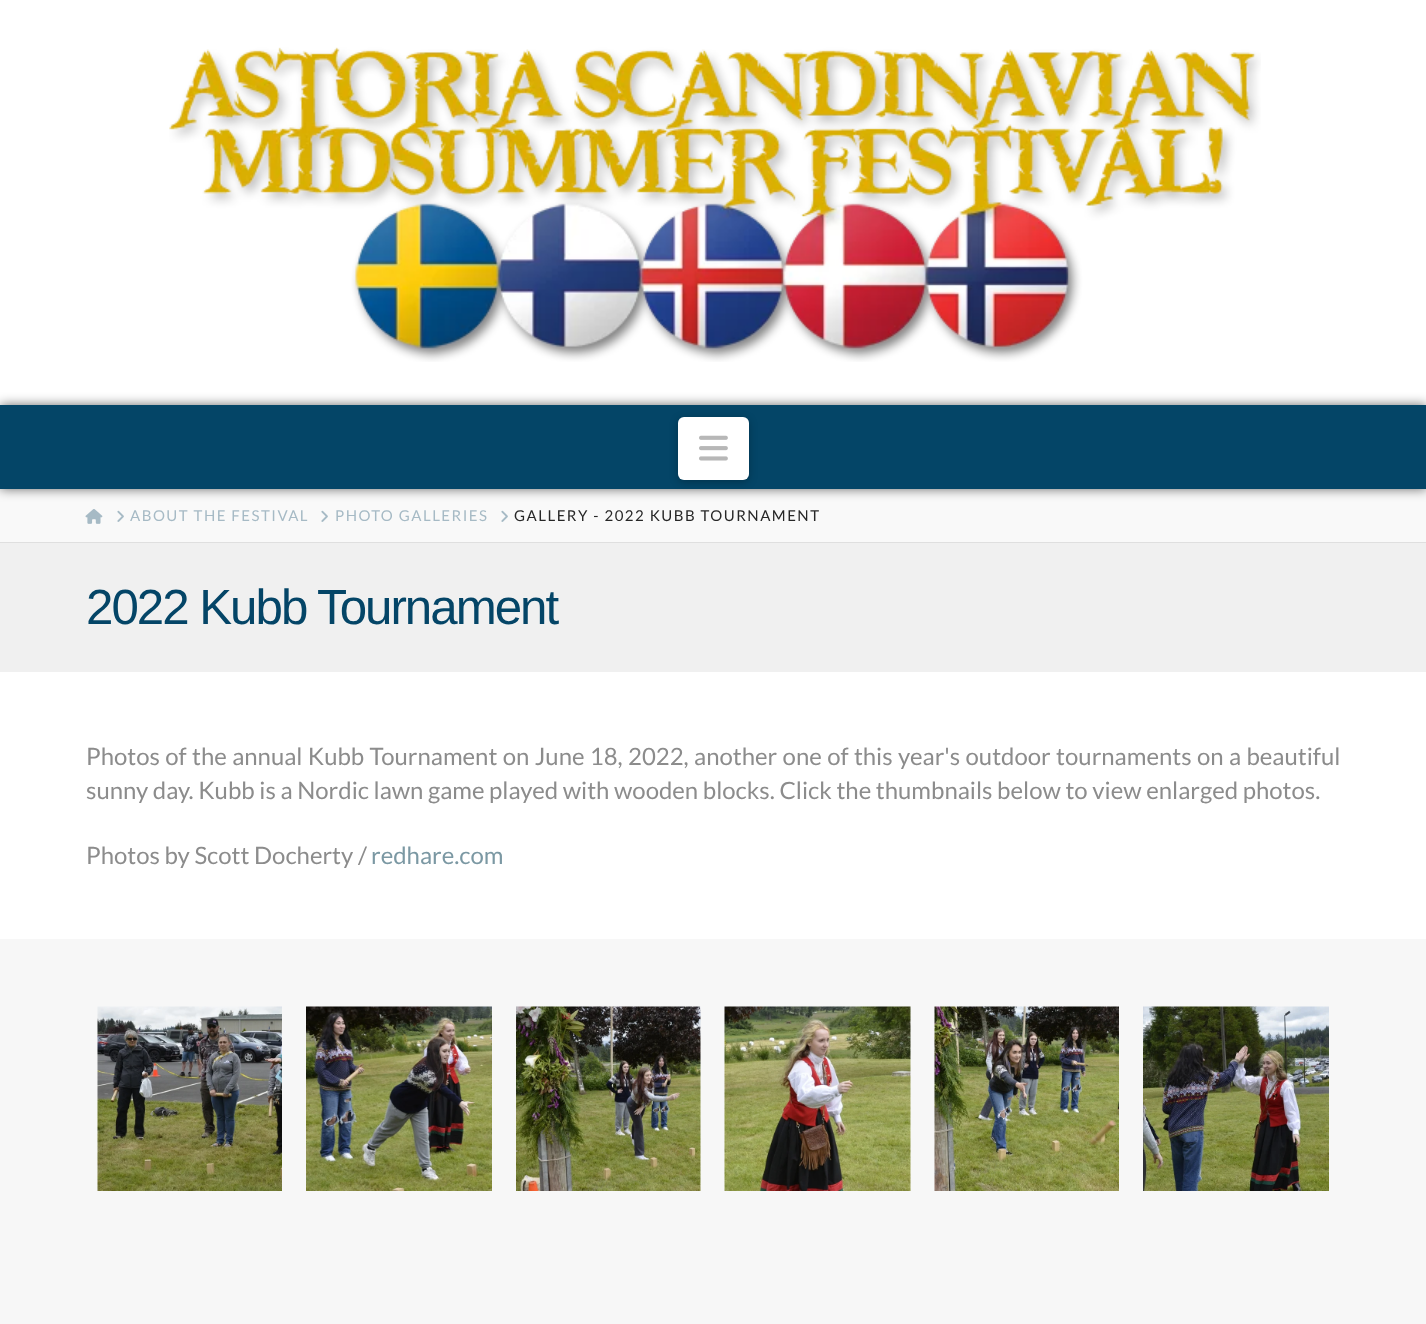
<!DOCTYPE html>
<meta charset="utf-8">
<style>body { margin: 0 } canvas { display: block }</style>
<canvas id="canvas" width="1426" height="1324"></canvas>
<img id="img1" src="img_01.png" hidden>
<img id="img2" src="img_02.png" hidden>
<img id="img3" src="img_03.png" hidden>
<img id="img4" src="img_04.png" hidden>
<img id="img5" src="img_05.png" hidden>
<img id="img6" src="img_06.png" hidden>
<img id="img7" src="img_07.png" hidden>
<img id="img8" src="img_08.png" hidden>
<img id="img9" src="img_09.png" hidden>
<img id="img10" src="img_10.png" hidden>
<script>
window.onload = function () {
	const canvas = document.getElementById("canvas");
	const ctx = canvas.getContext("2d");
	ctx.miterLimit = 4;
	ctx.fontKerning = "normal";
	function txt(s, x, y) {
		ctx.fillText(s, x, y);
	}
	function fill(x, y, w, h) {
		ctx.fillRect(x, y, w, h);
	}
	function round(x, y, w, h, r) {
		ctx.beginPath();
		ctx.roundRect(x, y, w, h, r);
		ctx.fill();
	}
	function img(id, x, y, w, h) {
		ctx.drawImage(document.getElementById(id), x, y, w, h);
	}

	ctx.fillStyle = "#FFFFFF";
	fill(0, 0, 1426, 1324);
	img("img1", 169, 47, 1092, 315);
	ctx.fillStyle = "#F9F9F9";
	fill(0, 489, 1426, 54);
	ctx.fillStyle = "rgba(0, 0, 0, 0.58)";
	ctx.filter = "blur(6px)";
	ctx.beginPath();
	ctx.rect(0, 405, 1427, 84);
	ctx.fill();
	ctx.filter = "none";
	ctx.fillStyle = "#044567";
	fill(0, 405, 1426, 84);
	ctx.fillStyle = "rgba(0, 0, 0, 0.25)";
	ctx.filter = "blur(4px)";
	ctx.beginPath();
	ctx.roundRect(678, 419, 71, 63, 6);
	ctx.fill();
	ctx.filter = "none";
	ctx.fillStyle = "#FFFFFF";
	round(678, 417, 71, 63, 6);
	img("img2", 699, 435, 29, 26);
	ctx.fillStyle = "rgba(0, 0, 0, 0.1)";
	fill(0, 542, 1426, 1);
	img("img3", 85, 509, 18, 15);
	img("img4", 117, 510, 7, 12);
	img("img4", 321, 510, 7, 12);
	img("img4", 501, 510, 7, 12);
	ctx.fillStyle = "#F0F0F0";
	fill(0, 543, 1426, 129);
	ctx.fillStyle = "#F7F7F7";
	fill(0, 939, 1426, 385);
	img("img5", 97, 1006, 185, 185);
	img("img6", 306, 1006, 186, 185);
	img("img7", 516, 1006, 185, 185);
	img("img8", 724, 1006, 187, 185);
	img("img9", 934, 1006, 185, 185);
	img("img10", 1143, 1006, 186, 185);
	ctx.letterSpacing = "1.5px";
	ctx.font = "15px Lato";
	ctx.fillStyle = "#A6BAC5";
	txt("ABOUT THE FESTIVAL", 130, 521);
	txt("PHOTO GALLERIES", 335, 521);
	ctx.fillStyle = "#272727";
	txt("GALLERY - 2022 KUBB TOURNAMENT", 514, 521);
	ctx.letterSpacing = "-2px";
	ctx.font = "49.25px Liberation Sans";
	ctx.fillStyle = "#044567";
	txt("2022 Kubb Tournament", 86, 624);
	ctx.letterSpacing = "0px";
	ctx.wordSpacing = "0.75px";
	ctx.font = "23.95px Lato";
	ctx.fillStyle = "#8C8C8C";
	txt("Photos of the annual Kubb Tournament on June 18, 2022, another one of this year's outdoor tournaments on a beautiful", 86, 765);
	ctx.wordSpacing = "0px";
	txt("sunny day. Kubb is a Nordic lawn game played with wooden blocks. Click the thumbnails below to view enlarged photos.", 86, 799);
	txt("Photos by Scott Docherty /", 86, 864);
	ctx.fillStyle = "#7B98A3";
	txt("redhare.com", 371, 864);
};
</script>
